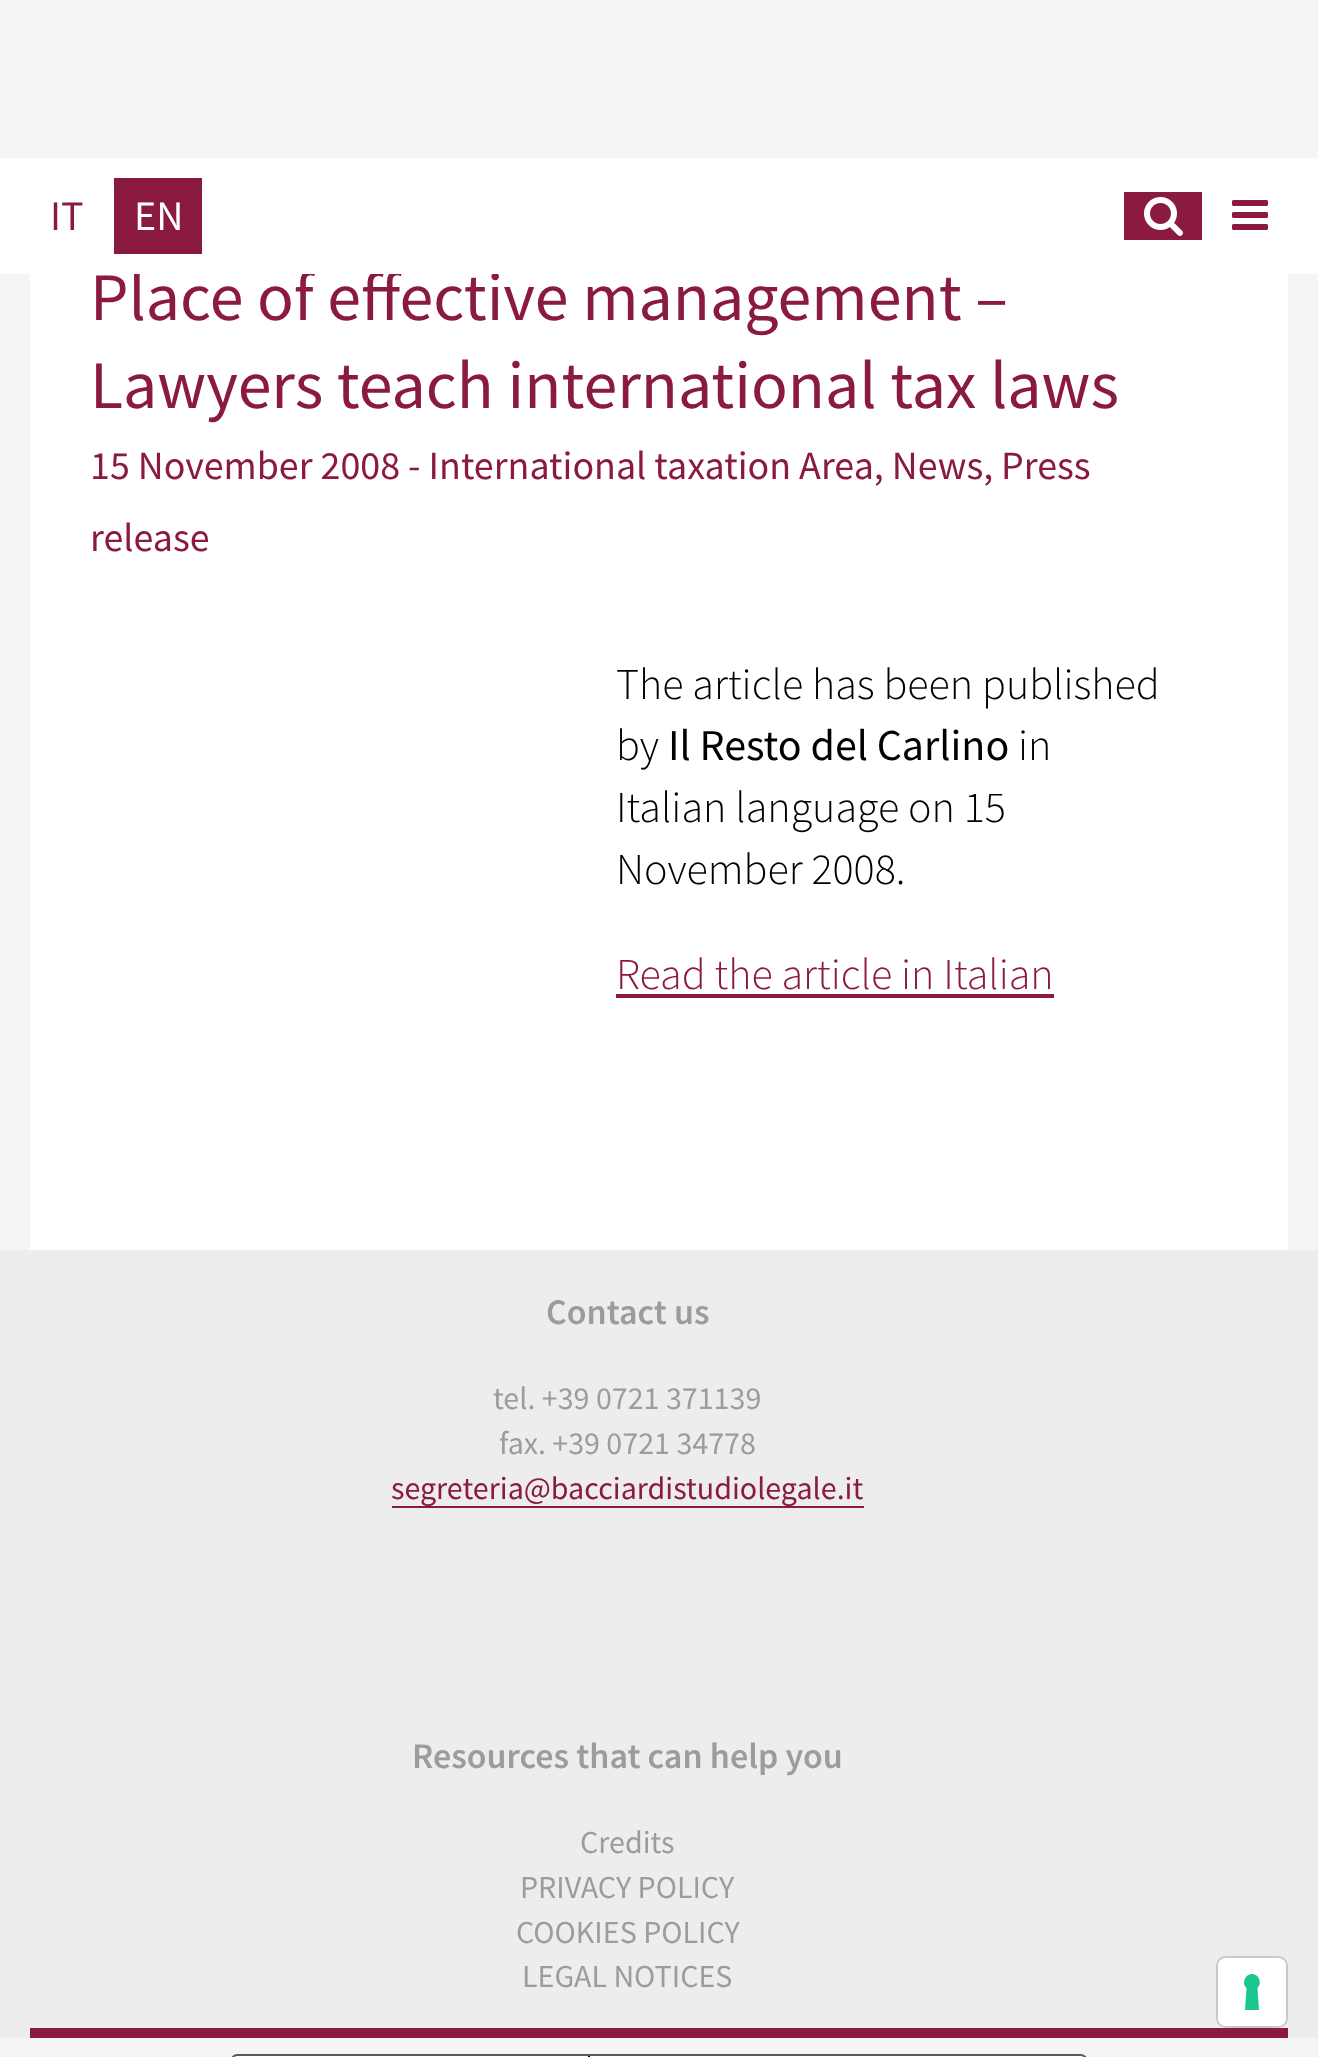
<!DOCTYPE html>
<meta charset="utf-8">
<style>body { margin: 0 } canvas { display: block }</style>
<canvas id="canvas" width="1318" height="2057"></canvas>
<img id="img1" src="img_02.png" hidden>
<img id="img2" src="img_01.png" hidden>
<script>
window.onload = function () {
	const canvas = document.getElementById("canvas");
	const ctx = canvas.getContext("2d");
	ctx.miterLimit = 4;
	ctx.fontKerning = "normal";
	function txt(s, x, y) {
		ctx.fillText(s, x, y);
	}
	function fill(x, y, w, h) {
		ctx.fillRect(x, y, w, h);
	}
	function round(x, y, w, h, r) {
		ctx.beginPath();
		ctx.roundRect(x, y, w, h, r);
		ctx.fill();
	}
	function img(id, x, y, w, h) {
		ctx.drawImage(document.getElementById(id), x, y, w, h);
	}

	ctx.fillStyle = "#F5F5F5";
	fill(0, 0, 1318, 2057);
	ctx.fillStyle = "#FFFFFF";
	fill(30, 274, 1258, 976);
	ctx.fillStyle = "#8A1A3E";
	fill(616, 994, 438, 4);
	ctx.fillStyle = "#EDEDED";
	fill(0, 1250, 1318, 788);
	ctx.fillStyle = "#8A1A3E";
	fill(392, 1506, 472, 2);
	fill(30, 2028, 1258, 10);
	ctx.beginPath();
	ctx.roundRect(1217, 1957, 70, 70, 9);
	ctx.strokeStyle = "#C9C9C9";
	ctx.lineWidth = 2;
	ctx.stroke();
	ctx.fillStyle = "#FFFFFF";
	round(1218, 1958, 68, 68, 8);
	ctx.fillStyle = "#1CC691";
	ctx.beginPath();
	ctx.moveTo(1252, 1974);
	ctx.bezierCurveTo(1259, 1974, 1262.5, 1983.5, 1257.5, 1988);
	ctx.lineTo(1259, 2010);
	ctx.lineTo(1245, 2010);
	ctx.lineTo(1246.5, 1988);
	ctx.bezierCurveTo(1241.5, 1983.5, 1245, 1974, 1252, 1974);
	ctx.closePath();
	ctx.fill("evenodd");
	ctx.fillStyle = "#FFFFFF";
	ctx.beginPath();
	ctx.roundRect(231, 2055, 856, 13, 9);
	ctx.fill();
	ctx.strokeStyle = "#595959";
	ctx.stroke();
	ctx.fillStyle = "#000000";
	fill(588, 2056, 2, 1);
	ctx.font = "68px Source Sans Pro";
	ctx.fillStyle = "#8A1A3E";
	txt("Place of effective management –", 90, 320);
	ctx.fillStyle = "#FFFFFF";
	fill(0, 158, 1318, 116);
	img("img1", 1232, 200, 36, 30);
	ctx.fillStyle = "#8A1A3E";
	fill(1124, 192, 78, 48);
	img("img2", 1144, 197, 39, 39);
	fill(114, 178, 88, 76);
	ctx.font = "42px Source Sans Pro";
	ctx.fillStyle = "#FFFFFF";
	txt("EN", 134, 230);
	ctx.fillStyle = "#8A1A3E";
	txt("IT", 50, 230);
	ctx.font = "68px Source Sans Pro";
	txt("Lawyers teach international tax laws", 90, 408);
	ctx.font = "40px Source Sans Pro";
	txt("15 November 2008 - International taxation Area, News, Press", 90, 479);
	txt("release", 90, 551);
	ctx.font = "300 44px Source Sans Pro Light";
	ctx.fillStyle = "#000000";
	txt("The article has been published", 616, 699);
	txt("by", 616, 760);
	ctx.font = "44px Source Sans Pro";
	txt("Il Resto del Carlino", 668, 760);
	ctx.font = "300 44px Source Sans Pro Light";
	txt("in", 1018, 760);
	txt("Italian language on 15", 616, 822);
	txt("November 2008.", 616, 884);
	ctx.fillStyle = "#8A1A3E";
	txt("Read the article in Italian", 616, 989);
	ctx.font = "600 36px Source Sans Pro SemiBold";
	ctx.fillStyle = "#9D9C9C";
	txt("Contact us", 546, 1324);
	ctx.font = "32px Source Sans Pro";
	txt("tel. +39 0721 371139", 493, 1409);
	txt("fax. +39 0721 34778", 499, 1454);
	ctx.fillStyle = "#8A1A3E";
	txt("segreteria@bacciardistudiolegale.it", 391, 1499);
	ctx.font = "600 36px Source Sans Pro SemiBold";
	ctx.fillStyle = "#9D9C9C";
	txt("Resources that can help you", 412, 1768);
	ctx.font = "32px Source Sans Pro";
	txt("Credits", 580, 1853);
	txt("PRIVACY POLICY", 520, 1898);
	txt("COOKIES POLICY", 516, 1943);
	txt("LEGAL NOTICES", 522, 1987);
};
</script>
